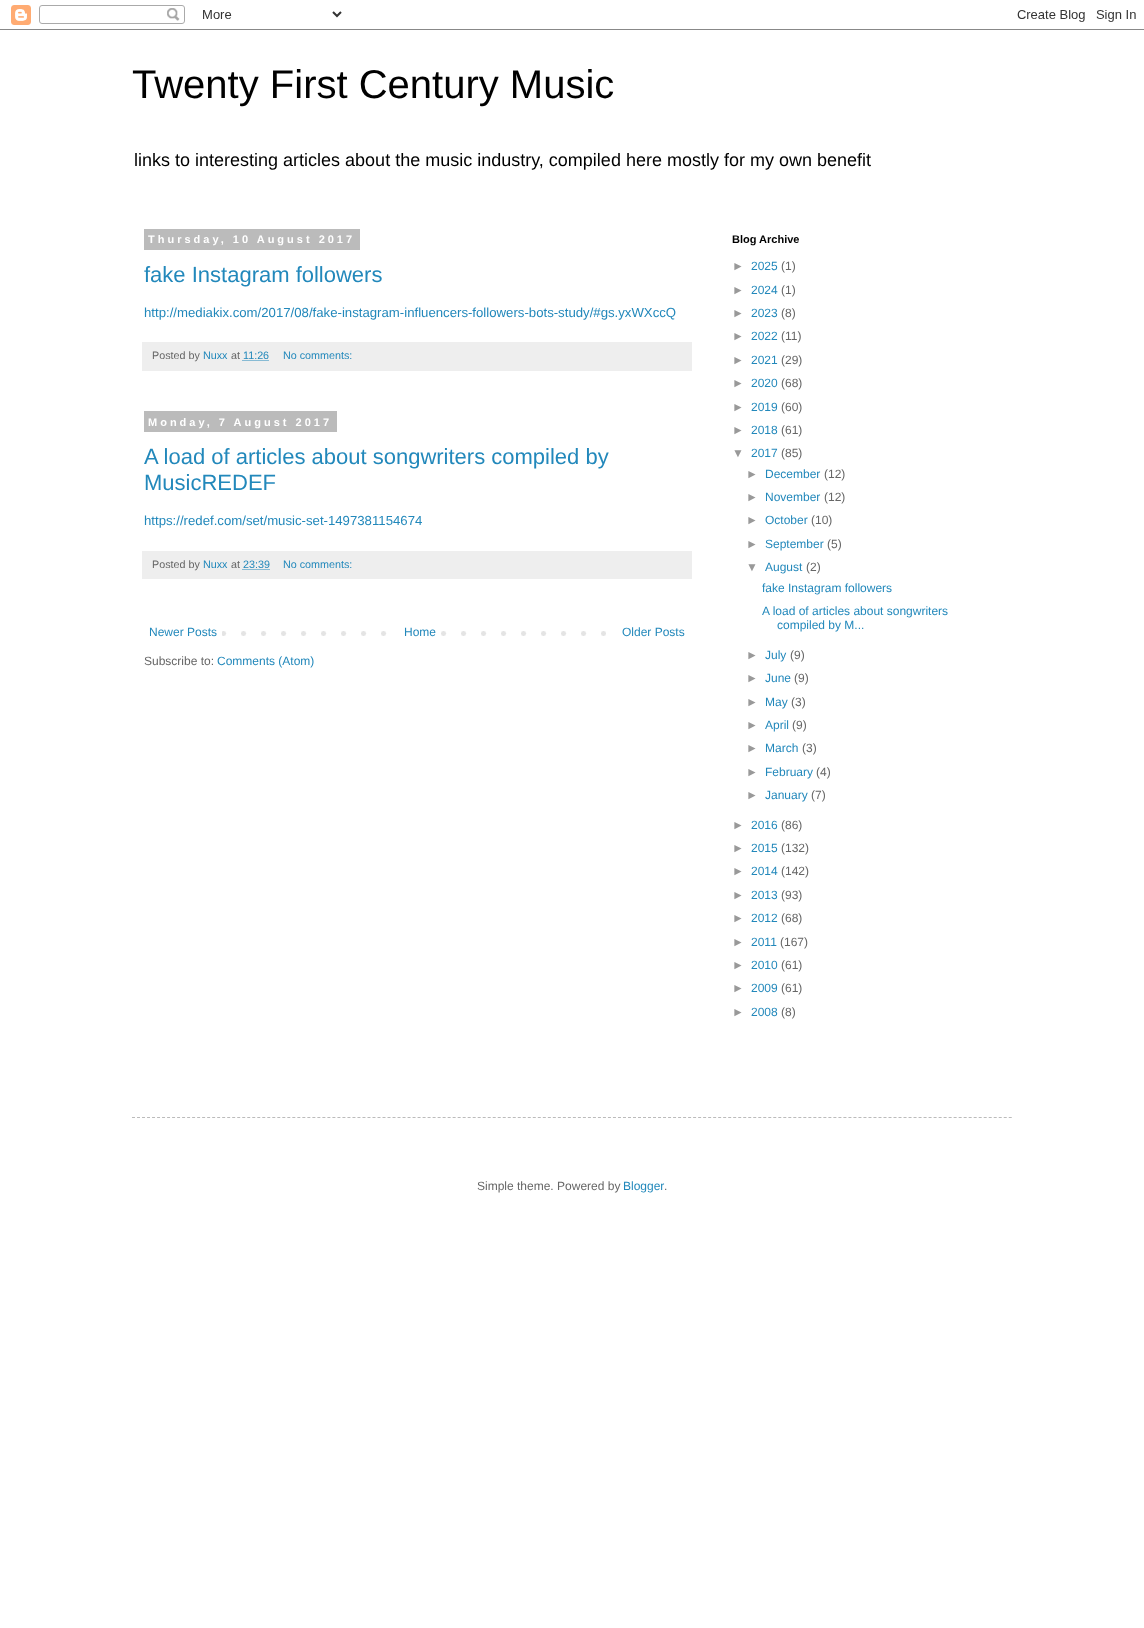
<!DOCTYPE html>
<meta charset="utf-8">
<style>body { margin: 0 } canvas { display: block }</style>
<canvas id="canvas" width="1144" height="1628"></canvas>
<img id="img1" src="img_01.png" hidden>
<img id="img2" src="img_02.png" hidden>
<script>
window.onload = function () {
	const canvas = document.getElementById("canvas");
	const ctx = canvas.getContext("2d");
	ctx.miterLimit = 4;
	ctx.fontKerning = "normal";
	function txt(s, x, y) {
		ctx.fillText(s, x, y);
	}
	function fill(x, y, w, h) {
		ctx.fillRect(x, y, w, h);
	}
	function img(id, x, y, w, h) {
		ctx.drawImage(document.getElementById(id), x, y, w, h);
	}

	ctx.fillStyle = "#FFFFFF";
	fill(0, 0, 1144, 1628);
	img("img1", 0, 5, 1144, 25);
	ctx.fillStyle = "#BBBBBB";
	fill(144, 229, 216, 21);
	ctx.fillStyle = "#EEEEEE";
	fill(142, 342, 550, 29);
	ctx.beginPath();
	ctx.moveTo(242.5, 360.5);
	ctx.lineTo(269, 360.5);
	ctx.strokeStyle = "#2288BB";
	ctx.setLineDash([1, 1]);
	ctx.stroke();
	ctx.fillStyle = "#BBBBBB";
	fill(144, 411, 193, 21);
	ctx.fillStyle = "#EEEEEE";
	fill(142, 551, 550, 28);
	ctx.beginPath();
	ctx.moveTo(242.5, 569.5);
	ctx.lineTo(269.5, 569.5);
	ctx.stroke();
	img("img2", 222, 631, 384, 5);
	ctx.fillStyle = "#FFFFFF";
	fill(401, 631, 26, 5);
	ctx.beginPath();
	ctx.moveTo(132, 1117.5);
	ctx.lineTo(1012, 1117.5);
	ctx.strokeStyle = "#BBBBBB";
	ctx.setLineDash([3, 2.01]);
	ctx.stroke();
	ctx.font = "40px Liberation Sans";
	ctx.fillStyle = "#000000";
	txt("Twenty First Century Music", 132, 98);
	ctx.font = "18px Liberation Sans";
	txt("links to interesting articles about the music industry, compiled here mostly for my own benefit", 134, 166);
	ctx.letterSpacing = "3px";
	ctx.font = "bold 11px Liberation Sans";
	ctx.fillStyle = "#FFFFFF";
	txt("Thursday, 10 August 2017", 148, 243);
	ctx.letterSpacing = "0px";
	ctx.font = "22px Liberation Sans";
	ctx.fillStyle = "#2288BB";
	txt("fake Instagram followers", 144, 282);
	ctx.font = "13.2px Liberation Sans";
	txt("http://mediakix.com/2017/08/fake-instagram-influencers-followers-bots-study/#gs.yxWXccQ", 144, 317);
	ctx.font = "10.75px Liberation Sans";
	ctx.fillStyle = "#666666";
	txt("Posted by", 152, 359);
	ctx.fillStyle = "#2288BB";
	txt("Nuxx", 203, 359);
	ctx.fillStyle = "#666666";
	txt("at", 231, 359);
	ctx.fillStyle = "#2288BB";
	txt("11:26", 243, 359);
	txt("No comments:", 283, 359);
	ctx.letterSpacing = "3px";
	ctx.font = "bold 11px Liberation Sans";
	ctx.fillStyle = "#FFFFFF";
	txt("Monday, 7 August 2017", 148, 426);
	ctx.letterSpacing = "0px";
	ctx.font = "22px Liberation Sans";
	ctx.fillStyle = "#2288BB";
	txt("A load of articles about songwriters compiled by", 144, 464);
	txt("MusicREDEF", 144, 490);
	ctx.font = "13.2px Liberation Sans";
	txt("https://redef.com/set/music-set-1497381154674", 144, 525);
	ctx.font = "10.75px Liberation Sans";
	ctx.fillStyle = "#666666";
	txt("Posted by", 152, 568);
	ctx.fillStyle = "#2288BB";
	txt("Nuxx", 203, 568);
	ctx.fillStyle = "#666666";
	txt("at", 231, 568);
	ctx.fillStyle = "#2288BB";
	txt("23:39", 243, 568);
	txt("No comments:", 283, 568);
	ctx.font = "12px Liberation Sans";
	txt("Newer Posts", 149, 636);
	txt("Home", 404, 636);
	txt("Older Posts", 622, 636);
	ctx.fillStyle = "#666666";
	txt("Subscribe to:", 144, 665);
	ctx.fillStyle = "#2288BB";
	txt("Comments (Atom)", 217, 665);
	ctx.font = "bold 11px Liberation Sans";
	ctx.fillStyle = "#000000";
	txt("Blog Archive", 732, 243);
	ctx.font = "12px Liberation Sans";
	ctx.fillStyle = "#999999";
	txt("►", 732, 270);
	ctx.fillStyle = "#2288BB";
	txt("2025", 751, 270);
	ctx.fillStyle = "#666666";
	txt("(1)", 781, 270);
	ctx.fillStyle = "#999999";
	txt("►", 732, 294);
	ctx.fillStyle = "#2288BB";
	txt("2024", 751, 294);
	ctx.fillStyle = "#666666";
	txt("(1)", 781, 294);
	ctx.fillStyle = "#999999";
	txt("►", 732, 317);
	ctx.fillStyle = "#2288BB";
	txt("2023", 751, 317);
	ctx.fillStyle = "#666666";
	txt("(8)", 781, 317);
	ctx.fillStyle = "#999999";
	txt("►", 732, 340);
	ctx.fillStyle = "#2288BB";
	txt("2022", 751, 340);
	ctx.fillStyle = "#666666";
	txt("(11)", 781, 340);
	ctx.fillStyle = "#999999";
	txt("►", 732, 364);
	ctx.fillStyle = "#2288BB";
	txt("2021", 751, 364);
	ctx.fillStyle = "#666666";
	txt("(29)", 781, 364);
	ctx.fillStyle = "#999999";
	txt("►", 732, 387);
	ctx.fillStyle = "#2288BB";
	txt("2020", 751, 387);
	ctx.fillStyle = "#666666";
	txt("(68)", 781, 387);
	ctx.fillStyle = "#999999";
	txt("►", 732, 411);
	ctx.fillStyle = "#2288BB";
	txt("2019", 751, 411);
	ctx.fillStyle = "#666666";
	txt("(60)", 781, 411);
	ctx.fillStyle = "#999999";
	txt("►", 732, 434);
	ctx.fillStyle = "#2288BB";
	txt("2018", 751, 434);
	ctx.fillStyle = "#666666";
	txt("(61)", 781, 434);
	ctx.fillStyle = "#999999";
	txt("▼", 732, 457);
	ctx.fillStyle = "#2288BB";
	txt("2017", 751, 457);
	ctx.fillStyle = "#666666";
	txt("(85)", 781, 457);
	ctx.fillStyle = "#999999";
	txt("►", 746, 478);
	ctx.fillStyle = "#2288BB";
	txt("December", 765, 478);
	ctx.fillStyle = "#666666";
	txt("(12)", 824, 478);
	ctx.fillStyle = "#999999";
	txt("►", 746, 501);
	ctx.fillStyle = "#2288BB";
	txt("November", 765, 501);
	ctx.fillStyle = "#666666";
	txt("(12)", 824, 501);
	ctx.fillStyle = "#999999";
	txt("►", 746, 524);
	ctx.fillStyle = "#2288BB";
	txt("October", 765, 524);
	ctx.fillStyle = "#666666";
	txt("(10)", 811, 524);
	ctx.fillStyle = "#999999";
	txt("►", 746, 548);
	ctx.fillStyle = "#2288BB";
	txt("September", 765, 548);
	ctx.fillStyle = "#666666";
	txt("(5)", 827, 548);
	ctx.fillStyle = "#999999";
	txt("▼", 746, 571);
	ctx.fillStyle = "#2288BB";
	txt("August", 765, 571);
	ctx.fillStyle = "#666666";
	txt("(2)", 806, 571);
	ctx.fillStyle = "#2288BB";
	txt("fake Instagram followers", 762, 592);
	txt("A load of articles about songwriters", 762, 615);
	txt("compiled by M...", 777, 629);
	ctx.fillStyle = "#999999";
	txt("►", 746, 659);
	ctx.fillStyle = "#2288BB";
	txt("July", 765, 659);
	ctx.fillStyle = "#666666";
	txt("(9)", 790, 659);
	ctx.fillStyle = "#999999";
	txt("►", 746, 682);
	ctx.fillStyle = "#2288BB";
	txt("June", 765, 682);
	ctx.fillStyle = "#666666";
	txt("(9)", 794, 682);
	ctx.fillStyle = "#999999";
	txt("►", 746, 706);
	ctx.fillStyle = "#2288BB";
	txt("May", 765, 706);
	ctx.fillStyle = "#666666";
	txt("(3)", 791, 706);
	ctx.fillStyle = "#999999";
	txt("►", 746, 729);
	ctx.fillStyle = "#2288BB";
	txt("April", 765, 729);
	ctx.fillStyle = "#666666";
	txt("(9)", 792, 729);
	ctx.fillStyle = "#999999";
	txt("►", 746, 752);
	ctx.fillStyle = "#2288BB";
	txt("March", 765, 752);
	ctx.fillStyle = "#666666";
	txt("(3)", 802, 752);
	ctx.fillStyle = "#999999";
	txt("►", 746, 776);
	ctx.fillStyle = "#2288BB";
	txt("February", 765, 776);
	ctx.fillStyle = "#666666";
	txt("(4)", 816, 776);
	ctx.fillStyle = "#999999";
	txt("►", 746, 799);
	ctx.fillStyle = "#2288BB";
	txt("January", 765, 799);
	ctx.fillStyle = "#666666";
	txt("(7)", 811, 799);
	ctx.fillStyle = "#999999";
	txt("►", 732, 829);
	ctx.fillStyle = "#2288BB";
	txt("2016", 751, 829);
	ctx.fillStyle = "#666666";
	txt("(86)", 781, 829);
	ctx.fillStyle = "#999999";
	txt("►", 732, 852);
	ctx.fillStyle = "#2288BB";
	txt("2015", 751, 852);
	ctx.fillStyle = "#666666";
	txt("(132)", 781, 852);
	ctx.fillStyle = "#999999";
	txt("►", 732, 875);
	ctx.fillStyle = "#2288BB";
	txt("2014", 751, 875);
	ctx.fillStyle = "#666666";
	txt("(142)", 781, 875);
	ctx.fillStyle = "#999999";
	txt("►", 732, 899);
	ctx.fillStyle = "#2288BB";
	txt("2013", 751, 899);
	ctx.fillStyle = "#666666";
	txt("(93)", 781, 899);
	ctx.fillStyle = "#999999";
	txt("►", 732, 922);
	ctx.fillStyle = "#2288BB";
	txt("2012", 751, 922);
	ctx.fillStyle = "#666666";
	txt("(68)", 781, 922);
	ctx.fillStyle = "#999999";
	txt("►", 732, 946);
	ctx.fillStyle = "#2288BB";
	txt("2011", 751, 946);
	ctx.fillStyle = "#666666";
	txt("(167)", 780, 946);
	ctx.fillStyle = "#999999";
	txt("►", 732, 969);
	ctx.fillStyle = "#2288BB";
	txt("2010", 751, 969);
	ctx.fillStyle = "#666666";
	txt("(61)", 781, 969);
	ctx.fillStyle = "#999999";
	txt("►", 732, 992);
	ctx.fillStyle = "#2288BB";
	txt("2009", 751, 992);
	ctx.fillStyle = "#666666";
	txt("(61)", 781, 992);
	ctx.fillStyle = "#999999";
	txt("►", 732, 1016);
	ctx.fillStyle = "#2288BB";
	txt("2008", 751, 1016);
	ctx.fillStyle = "#666666";
	txt("(8)", 781, 1016);
	txt("Simple theme. Powered by", 477, 1190);
	ctx.fillStyle = "#2288BB";
	txt("Blogger", 623, 1190);
	ctx.fillStyle = "#666666";
	txt(".", 664, 1190);
};
</script>
